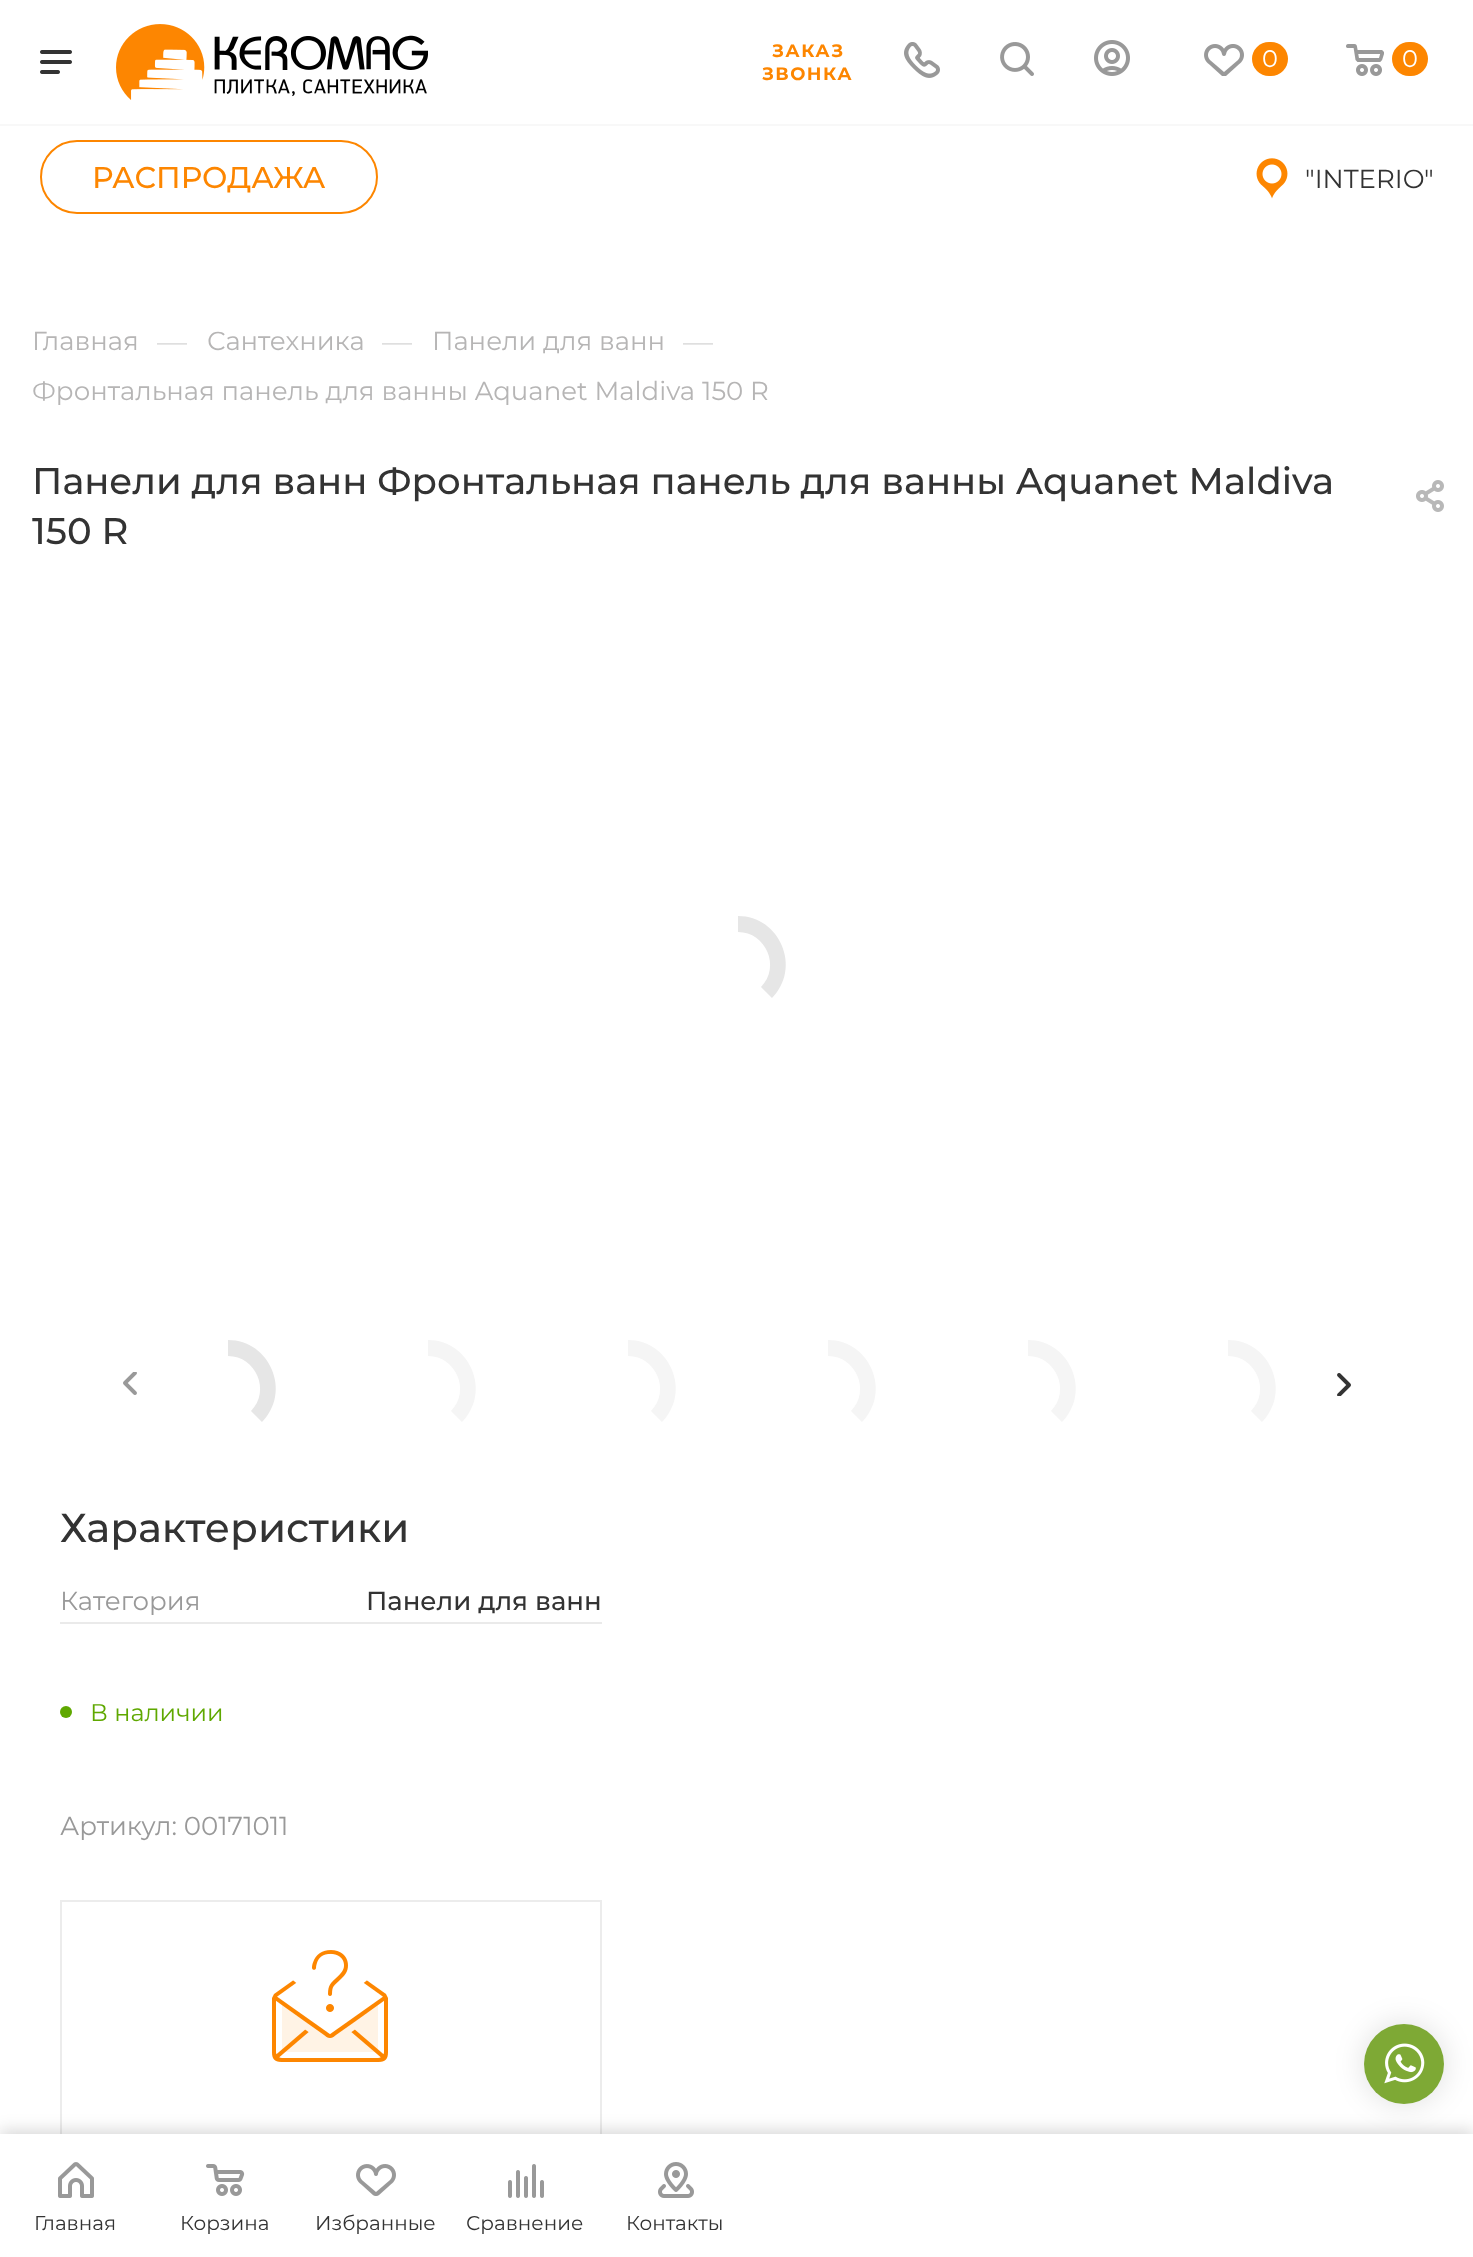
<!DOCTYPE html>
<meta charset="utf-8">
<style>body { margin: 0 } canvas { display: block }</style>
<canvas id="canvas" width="1473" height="2257"></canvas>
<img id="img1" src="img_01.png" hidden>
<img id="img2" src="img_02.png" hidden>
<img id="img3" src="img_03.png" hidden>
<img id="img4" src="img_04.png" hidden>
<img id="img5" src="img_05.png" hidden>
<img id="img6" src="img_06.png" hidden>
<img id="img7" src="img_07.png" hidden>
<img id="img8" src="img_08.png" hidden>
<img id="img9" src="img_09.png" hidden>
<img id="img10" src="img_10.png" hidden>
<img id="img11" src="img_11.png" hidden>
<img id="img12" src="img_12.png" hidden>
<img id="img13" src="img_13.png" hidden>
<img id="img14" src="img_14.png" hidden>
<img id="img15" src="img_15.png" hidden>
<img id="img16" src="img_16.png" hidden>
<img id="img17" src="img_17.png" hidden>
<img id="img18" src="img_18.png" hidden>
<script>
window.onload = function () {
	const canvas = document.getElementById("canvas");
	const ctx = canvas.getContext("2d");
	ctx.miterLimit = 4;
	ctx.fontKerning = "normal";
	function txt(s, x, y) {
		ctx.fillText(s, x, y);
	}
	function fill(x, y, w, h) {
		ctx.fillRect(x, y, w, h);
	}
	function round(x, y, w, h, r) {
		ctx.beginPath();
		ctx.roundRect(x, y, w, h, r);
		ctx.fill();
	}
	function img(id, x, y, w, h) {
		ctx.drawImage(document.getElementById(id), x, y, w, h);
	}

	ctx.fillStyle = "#FFFFFF";
	fill(0, 0, 1473, 2257);
	ctx.fillStyle = "#F8F8F8";
	fill(0, 124, 1473, 2);
	img("img1", 40, 50, 32, 24);
	img("img2", 116, 24, 312, 76);
	img("img3", 904, 42, 36, 36);
	img("img4", 1000, 42, 34, 34);
	img("img5", 1094, 40, 36, 36);
	img("img6", 1204, 44, 40, 32);
	ctx.fillStyle = "#FD8600";
	round(1252, 42, 36, 34, 17);
	img("img7", 1346, 44, 38, 32);
	round(1392, 42, 36, 34, 17);
	ctx.beginPath();
	ctx.roundRect(41, 141, 336, 72, 36);
	ctx.strokeStyle = "#FD8600";
	ctx.lineWidth = 2;
	ctx.stroke();
	img("img8", 1256, 158, 32, 41);
	img("img9", 1416, 480, 28, 32);
	ctx.fillStyle = "#E6E6E6";
	ctx.beginPath();
	ctx.moveTo(738, 916);
	ctx.bezierCurveTo(780, 916, 802, 968, 772, 998);
	ctx.lineTo(761, 987);
	ctx.bezierCurveTo(781, 967, 766, 932, 738, 932);
	ctx.closePath();
	ctx.fill();
	ctx.beginPath();
	ctx.moveTo(228, 1340);
	ctx.bezierCurveTo(270, 1340, 292, 1392, 262, 1422);
	ctx.lineTo(251, 1411);
	ctx.bezierCurveTo(271, 1391, 256, 1356, 228, 1356);
	ctx.closePath();
	ctx.fill();
	ctx.fillStyle = "#F5F5F5";
	ctx.beginPath();
	ctx.moveTo(428, 1340);
	ctx.bezierCurveTo(470, 1340, 492, 1392, 462, 1422);
	ctx.lineTo(451, 1411);
	ctx.bezierCurveTo(471, 1391, 456, 1356, 428, 1356);
	ctx.closePath();
	ctx.fill();
	ctx.beginPath();
	ctx.moveTo(628, 1340);
	ctx.bezierCurveTo(670, 1340, 692, 1392, 662, 1422);
	ctx.lineTo(651, 1411);
	ctx.bezierCurveTo(671, 1391, 656, 1356, 628, 1356);
	ctx.closePath();
	ctx.fill();
	ctx.beginPath();
	ctx.moveTo(828, 1340);
	ctx.bezierCurveTo(870, 1340, 892, 1392, 862, 1422);
	ctx.lineTo(851, 1411);
	ctx.bezierCurveTo(871, 1391, 856, 1356, 828, 1356);
	ctx.closePath();
	ctx.fill();
	ctx.beginPath();
	ctx.moveTo(1028, 1340);
	ctx.bezierCurveTo(1070, 1340, 1092, 1392, 1062, 1422);
	ctx.lineTo(1051, 1411);
	ctx.bezierCurveTo(1071, 1391, 1056, 1356, 1028, 1356);
	ctx.closePath();
	ctx.fill();
	ctx.beginPath();
	ctx.moveTo(1228, 1340);
	ctx.bezierCurveTo(1270, 1340, 1292, 1392, 1262, 1422);
	ctx.lineTo(1251, 1411);
	ctx.bezierCurveTo(1271, 1391, 1256, 1356, 1228, 1356);
	ctx.closePath();
	ctx.fill();
	img("img10", 123, 1372, 14, 23);
	img("img11", 1337, 1373, 14, 23);
	ctx.fillStyle = "#EAEAEA";
	fill(60, 1622, 542, 2);
	ctx.fillStyle = "#5FA800";
	ctx.beginPath();
	ctx.arc(66, 1712, 6, 0, Math.PI * 2);
	ctx.fill();
	ctx.strokeStyle = "#ECECEC";
	ctx.strokeRect(61, 1901, 540, 320);
	img("img12", 272, 1950, 116, 112);
	ctx.fillStyle = "rgba(0, 0, 0, 0.13)";
	ctx.filter = "blur(15px)";
	ctx.beginPath();
	ctx.roundRect(1364, 2024, 80, 80, 40);
	ctx.fill();
	ctx.filter = "none";
	ctx.fillStyle = "#7EA935";
	ctx.beginPath();
	ctx.arc(1404, 2064, 40, 0, Math.PI * 2);
	ctx.fill();
	img("img13", 1384, 2043, 41, 41);
	ctx.fillStyle = "rgba(0, 0, 0, 0.15)";
	ctx.filter = "blur(8px)";
	ctx.beginPath();
	ctx.rect(0, 2130, 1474, 124);
	ctx.fill();
	ctx.filter = "none";
	ctx.fillStyle = "#FFFFFF";
	fill(0, 2134, 1473, 123);
	img("img14", 58, 2162, 36, 36);
	img("img15", 206, 2164, 39, 32);
	img("img16", 356, 2164, 40, 32);
	img("img17", 508, 2164, 36, 34);
	img("img18", 658, 2162, 36, 36);
	ctx.letterSpacing = "1.5px";
	ctx.font = "bold 18px Montserrat";
	ctx.fillStyle = "#FD8600";
	txt("ЗАКАЗ", 772, 57);
	txt("ЗВОНКА", 762, 80);
	ctx.letterSpacing = "0px";
	ctx.font = "24px Montserrat";
	ctx.fillStyle = "#FFFFFF";
	txt("0", 1262, 67);
	txt("0", 1402, 67);
	ctx.font = "500 30px Montserrat";
	ctx.fillStyle = "#FD8600";
	txt("РАСПРОДАЖА", 92, 188);
	ctx.font = "26px Montserrat";
	ctx.fillStyle = "#333333";
	txt("\"INTERIO\"", 1305, 188);
	ctx.fillStyle = "#B6B5B5";
	txt("Главная", 32, 350);
	ctx.font = "30px Montserrat";
	ctx.fillStyle = "#DDDDDD";
	txt("—", 157, 352);
	ctx.font = "26px Montserrat";
	ctx.fillStyle = "#B6B5B5";
	txt("Сантехника", 207, 350);
	ctx.font = "30px Montserrat";
	ctx.fillStyle = "#DDDDDD";
	txt("—", 382, 352);
	ctx.font = "26px Montserrat";
	ctx.fillStyle = "#B6B5B5";
	txt("Панели для ванн", 432, 350);
	ctx.font = "30px Montserrat";
	ctx.fillStyle = "#DDDDDD";
	txt("—", 683, 352);
	ctx.font = "26px Montserrat";
	ctx.fillStyle = "#B6B5B5";
	txt("Фронтальная панель для ванны Aquanet Maldiva 150 R", 32, 400);
	ctx.font = "500 37px Montserrat";
	ctx.fillStyle = "#333333";
	txt("Панели для ванн Фронтальная панель для ванны Aquanet Maldiva", 32, 494);
	txt("150 R", 32, 544);
	ctx.font = "500 40.5px Montserrat";
	txt("Характеристики", 60, 1542);
	ctx.font = "26px Montserrat";
	ctx.fillStyle = "#999999";
	txt("Категория", 60, 1610);
	ctx.font = "500 26px Montserrat";
	ctx.fillStyle = "#333333";
	txt("Панели для ванн", 366, 1610);
	ctx.font = "24px Montserrat";
	ctx.fillStyle = "#5FA800";
	txt("В наличии", 90, 1721);
	ctx.font = "26px Montserrat";
	ctx.fillStyle = "#999999";
	txt("Артикул: 00171011", 60, 1835);
	ctx.font = "20px Montserrat";
	ctx.fillStyle = "#333333";
	txt("Главная", 34, 2230);
	txt("Корзина", 180, 2230);
	txt("Избранные", 315, 2230);
	txt("Сравнение", 466, 2230);
	txt("Контакты", 626, 2230);
};
</script>
